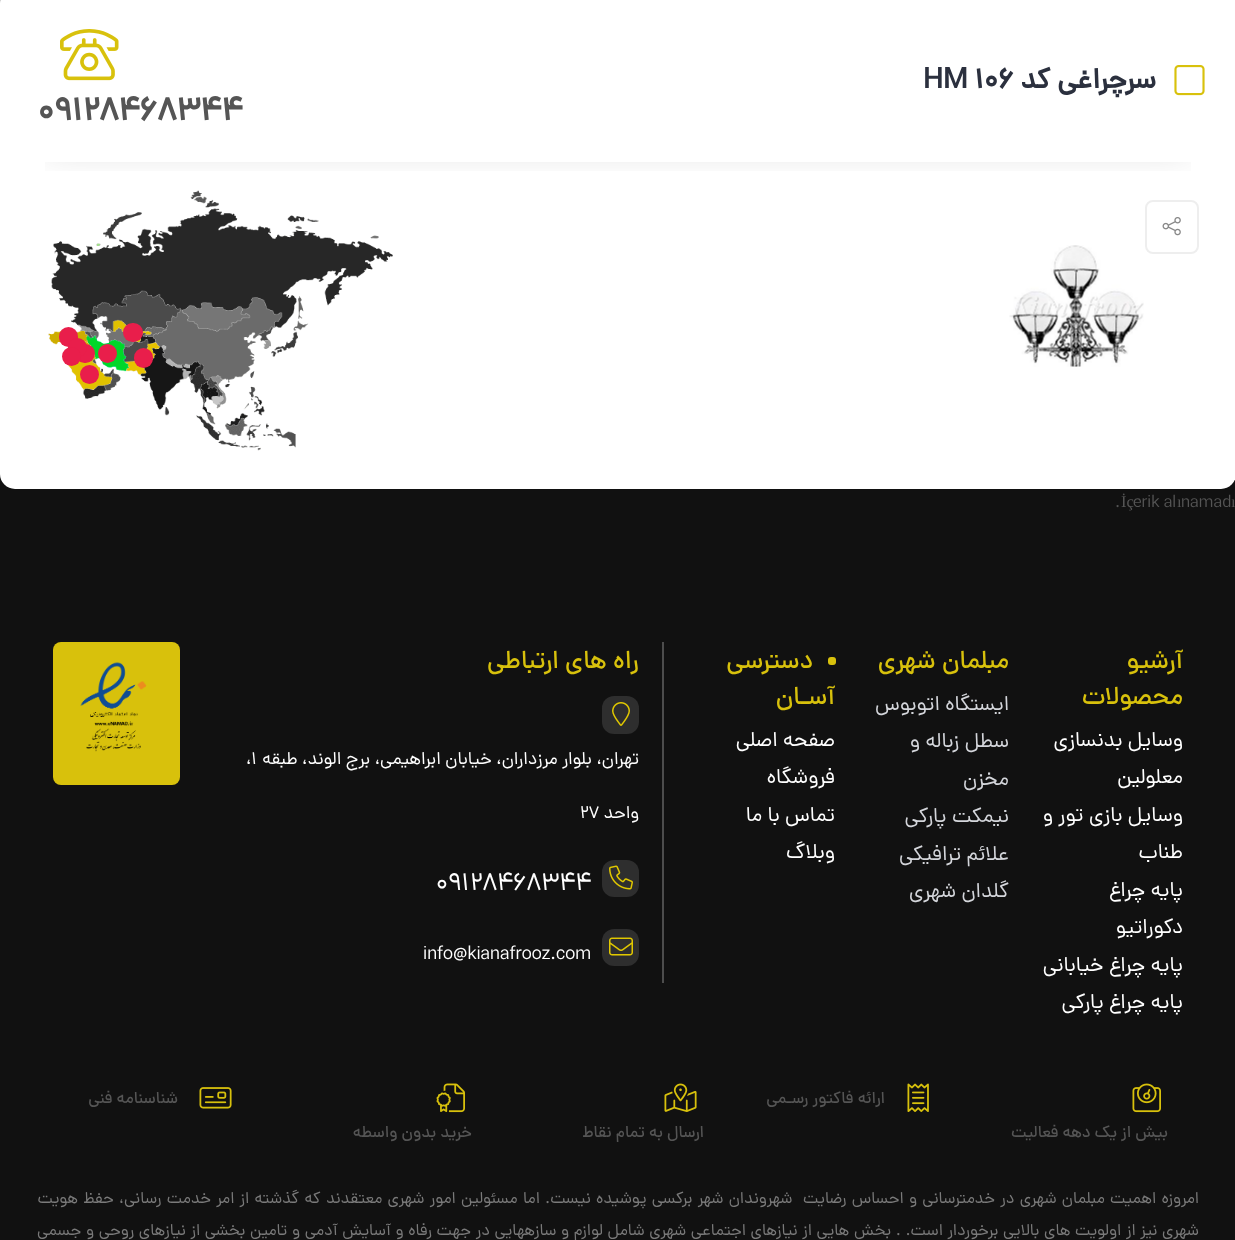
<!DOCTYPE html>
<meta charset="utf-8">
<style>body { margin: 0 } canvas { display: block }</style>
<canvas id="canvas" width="1235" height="1240"></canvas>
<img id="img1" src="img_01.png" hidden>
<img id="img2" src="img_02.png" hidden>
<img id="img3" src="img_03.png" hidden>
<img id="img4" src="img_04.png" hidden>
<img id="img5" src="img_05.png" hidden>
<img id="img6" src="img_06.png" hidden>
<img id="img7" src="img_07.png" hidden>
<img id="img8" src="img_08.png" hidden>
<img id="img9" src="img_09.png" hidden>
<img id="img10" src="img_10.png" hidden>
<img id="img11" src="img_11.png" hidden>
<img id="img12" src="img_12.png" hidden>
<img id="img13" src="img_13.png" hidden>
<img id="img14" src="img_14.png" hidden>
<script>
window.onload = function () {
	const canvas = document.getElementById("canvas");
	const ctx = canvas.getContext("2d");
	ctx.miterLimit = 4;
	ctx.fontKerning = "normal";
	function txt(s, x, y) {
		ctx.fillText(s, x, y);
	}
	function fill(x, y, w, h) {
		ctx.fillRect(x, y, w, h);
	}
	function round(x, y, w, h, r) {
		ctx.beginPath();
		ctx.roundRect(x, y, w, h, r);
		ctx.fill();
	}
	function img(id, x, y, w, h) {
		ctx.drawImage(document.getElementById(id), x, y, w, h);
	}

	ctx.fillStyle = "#111111";
	fill(0, 0, 1235, 1240);
	ctx.fillStyle = "#FFFFFF";
	round(0, -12, 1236, 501, 15);
	ctx.save();
	ctx.beginPath();
	ctx.rect(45, 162, 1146, 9);
	ctx.clip();
	ctx.fillStyle = "rgba(0, 0, 0, 0.2)";
	ctx.filter = "blur(19.5px)";
	ctx.beginPath();
	ctx.rect(45, 47, 1146, 99);
	ctx.fill();
	ctx.filter = "none";
	ctx.restore();
	img("img1", 1174, 65, 31, 31);
	img("img2", 60, 29, 59, 52);
	ctx.beginPath();
	ctx.roundRect(1146, 201, 52, 52, 7);
	ctx.strokeStyle = "#EEEEEE";
	ctx.lineWidth = 2;
	ctx.stroke();
	img("img3", 1162, 217, 19, 19);
	img("img4", 1009, 245, 135, 122);
	img("img5", 48, 190, 345, 261);
	ctx.fillStyle = "#E91E4B";
	round(123, 323, 20, 19, 9.5);
	round(75, 344, 20, 19, 9.5);
	round(59, 327, 19, 20, 9.5);
	ctx.beginPath();
	ctx.arc(77.5, 347.5, 9.5, 0, Math.PI * 2);
	ctx.fill();
	round(134, 348, 19, 20, 9.5);
	ctx.beginPath();
	ctx.arc(107.5, 353.5, 9.5, 0, Math.PI * 2);
	ctx.fill();
	ctx.beginPath();
	ctx.arc(89.5, 374.5, 9.5, 0, Math.PI * 2);
	ctx.fill();
	ctx.beginPath();
	ctx.arc(71.5, 356.5, 9.5, 0, Math.PI * 2);
	ctx.fill();
	ctx.fillStyle = "#D8C10C";
	round(828, 657, 8, 8, 3);
	ctx.fillStyle = "#4D4D4D";
	fill(662, 642, 2, 341);
	ctx.fillStyle = "#2E2E2E";
	round(602, 696, 37, 38, 12);
	img("img6", 612, 702, 18, 24);
	round(602, 860, 37, 37, 12);
	img("img7", 609, 865, 24, 25);
	round(602, 929, 37, 37, 12);
	img("img8", 609, 937, 24, 19);
	ctx.fillStyle = "#D8C10C";
	round(53, 642, 127, 143, 8);
	img("img9", 80, 662, 67, 90);
	img("img10", 907, 1083, 22, 29);
	img("img11", 199, 1087, 33, 22);
	img("img12", 1132, 1083, 29, 30);
	img("img13", 664, 1083, 33, 29);
	img("img14", 436, 1083, 29, 30);
	ctx.direction = "rtl";
	ctx.font = "bold 28.5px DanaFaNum";
	ctx.fillStyle = "#2B303E";
	txt("سرچراغی کد", 1156, 88);
	ctx.direction = "ltr";
	txt("HM 106", 923, 88);
	ctx.font = "bold 33px DanaFaNum";
	ctx.fillStyle = "#555555";
	txt("09128468344", 38, 120);
	ctx.font = "16.5px Liberation Serif";
	txt("ı", 1231, 507);
	ctx.font = "16.5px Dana";
	txt("namad", 1181, 507);
	ctx.font = "16.5px Liberation Serif";
	txt("ı", 1177, 507);
	ctx.font = "16.5px Dana";
	txt("erik al", 1133, 507);
	ctx.font = "16.5px Liberation Serif";
	txt("İç", 1121, 507);
	ctx.font = "16.5px Dana";
	txt(".", 1115, 507);
	ctx.direction = "rtl";
	ctx.font = "500 25.5px Dana";
	ctx.fillStyle = "#D8C10C";
	txt("آرشیو", 1183, 668);
	txt("محصولات", 1183, 704);
	ctx.font = "21px Dana";
	ctx.fillStyle = "#FFFFFF";
	txt("وسایل بدنسازی", 1183, 746);
	txt("معلولین", 1183, 783);
	txt("وسایل بازی تور و", 1183, 821);
	txt("طناب", 1183, 858);
	txt("پایه چراغ", 1183, 896);
	txt("دکوراتیو", 1183, 933);
	txt("پایه چراغ خیابانی", 1183, 971);
	txt("پایه چراغ پارکی", 1183, 1008);
	ctx.font = "500 25.5px Dana";
	ctx.fillStyle = "#D8C10C";
	txt("مبلمان شهری", 1009, 668);
	ctx.font = "21px Dana";
	ctx.fillStyle = "#D4D6DB";
	txt("ایستگاه اتوبوس", 1009, 710);
	txt("سطل زباله و", 1009, 747);
	txt("مخزن", 1009, 785);
	txt("نیمکت پارکی", 1009, 822);
	txt("علائم ترافیکی", 1009, 860);
	txt("گلدان شهری", 1009, 897);
	ctx.font = "500 25.5px Dana";
	ctx.fillStyle = "#D8C10C";
	txt("دسترسی", 813, 668);
	txt("آسـان", 835, 704);
	ctx.font = "21px Dana";
	ctx.fillStyle = "#FFFFFF";
	txt("صفحه اصلی", 835, 746);
	txt("فروشگاه", 835, 783);
	txt("تماس با ما", 835, 821);
	txt("وبلاگ", 835, 858);
	ctx.font = "500 25.5px Dana";
	ctx.fillStyle = "#D8C10C";
	txt("راه های ارتباطی", 639, 668);
	ctx.font = "18px DanaFaNum";
	ctx.fillStyle = "#FFFFFF";
	txt("تهران، بلوار مرزداران، خیابان ابراهیمی، برج الوند، طبقه", 639, 764);
	ctx.direction = "ltr";
	txt("،1", 246, 764);
	ctx.direction = "rtl";
	txt("واحد", 639, 818);
	ctx.direction = "ltr";
	txt("27", 580, 818);
	ctx.font = "25.5px DanaFaNum";
	txt("09128468344", 436, 890);
	ctx.font = "18px DanaFaNum";
	txt("info@kianafrooz.com", 423, 959);
	ctx.direction = "rtl";
	ctx.font = "500 16.5px Dana";
	ctx.fillStyle = "#555555";
	txt("ارائه فاکتور رسـمی", 885, 1103);
	txt("شناسنامه فنی", 178, 1103);
	txt("بیش از یک دهه فعالیت", 1168, 1137);
	txt("ارسال به تمام نقاط", 704, 1137);
	txt("خرید بدون واسطه", 472, 1137);
	ctx.wordSpacing = "1px";
	ctx.font = "16.5px Dana";
	ctx.fillStyle = "#7A7A7A";
	txt("امروزه اهمیت مبلمان شهری در خدمترسانی و احساس رضایت  شهروندان شهر برکسی پوشیده نیست. اما مسئولین امور شهری معتقدند که گذشته از امر خدمت رسانی، حفظ هویت", 1199, 1203);
	ctx.wordSpacing = "0.4px";
	txt("شهری نیز از اولویت های بالایی برخوردار است. . بخش هایی از نیازهای اجتماعی شهری شامل لوازم و سازههایی در جهت رفاه و آسایش آدمی و تامین بخشی از نیازهای روحی و جسمی", 1199, 1235);
};
</script>
